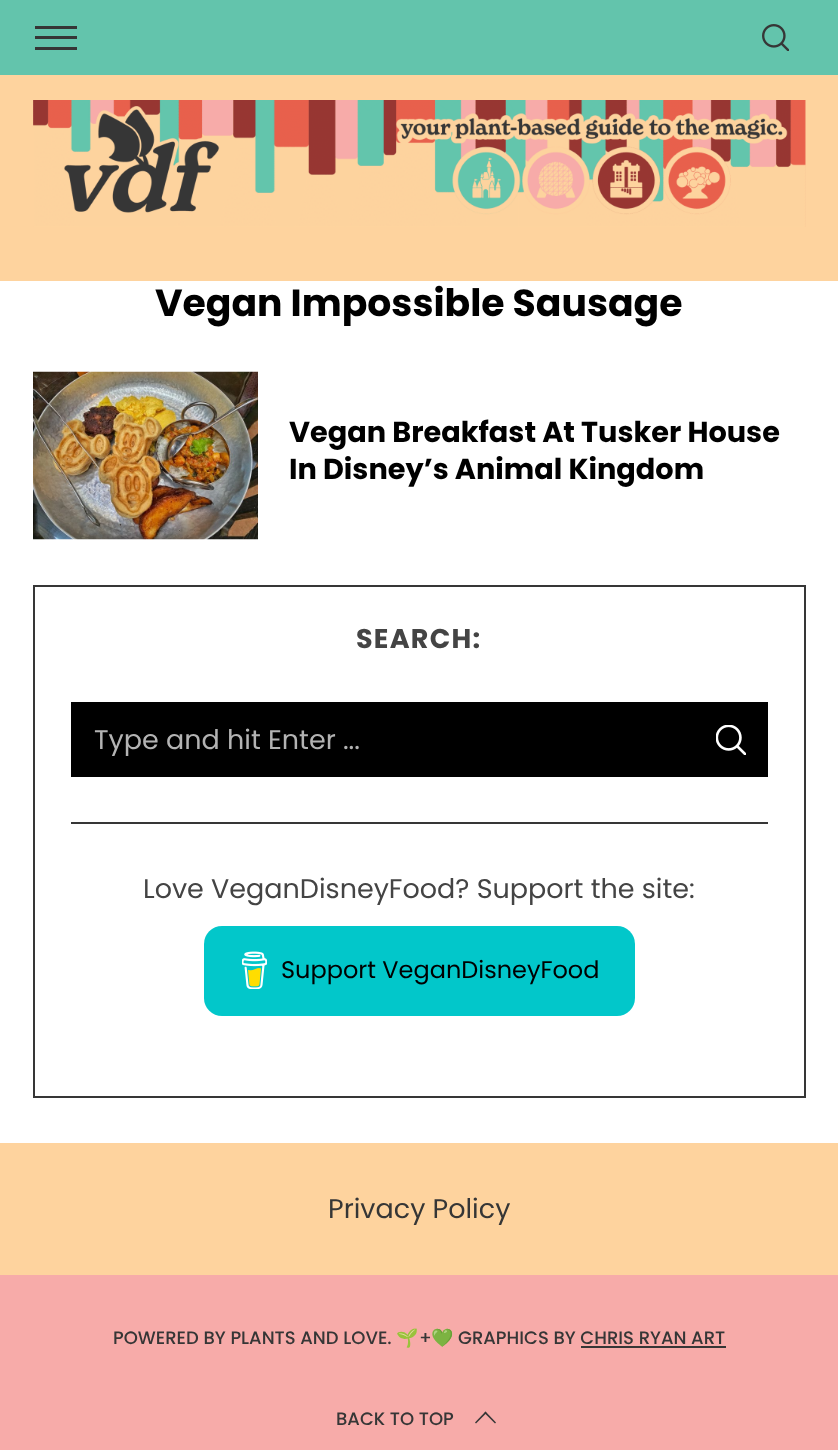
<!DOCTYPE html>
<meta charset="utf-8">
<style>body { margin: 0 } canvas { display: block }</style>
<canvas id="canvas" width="838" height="1450"></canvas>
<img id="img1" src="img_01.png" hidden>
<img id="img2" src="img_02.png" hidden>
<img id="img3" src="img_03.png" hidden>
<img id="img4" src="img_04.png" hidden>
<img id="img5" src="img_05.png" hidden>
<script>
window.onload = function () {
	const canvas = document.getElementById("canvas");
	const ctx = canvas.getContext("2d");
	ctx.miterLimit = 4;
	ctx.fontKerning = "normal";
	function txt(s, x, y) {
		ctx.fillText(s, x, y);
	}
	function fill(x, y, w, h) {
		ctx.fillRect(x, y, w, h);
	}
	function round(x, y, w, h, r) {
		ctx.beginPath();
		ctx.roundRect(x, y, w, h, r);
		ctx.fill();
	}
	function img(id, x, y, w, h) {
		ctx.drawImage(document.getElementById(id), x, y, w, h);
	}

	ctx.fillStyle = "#FFFFFF";
	fill(0, 0, 838, 1450);
	ctx.fillStyle = "#63C4AC";
	fill(0, 0, 838, 75);
	ctx.fillStyle = "#363636";
	fill(35, 36, 42, 3);
	fill(35, 26, 42, 3);
	fill(35, 47, 42, 3);
	img("img1", 762, 24, 27, 27);
	ctx.fillStyle = "#FED39E";
	fill(0, 75, 838, 206);
	img("img2", 33, 100, 773, 127);
	img("img3", 33, 371, 225, 169);
	ctx.strokeStyle = "#363636";
	ctx.lineWidth = 2;
	ctx.strokeRect(34, 586, 771, 511);
	ctx.fillStyle = "#363636";
	fill(71, 822, 697, 2);
	ctx.fillStyle = "#000000";
	fill(71, 702, 697, 75);
	img("img4", 716, 725, 30, 30);
	ctx.fillStyle = "#02C7CA";
	round(204, 926, 431, 90, 18);
	img("img5", 242, 951, 25, 38);
	ctx.fillStyle = "#FED39E";
	fill(0, 1143, 838, 132);
	ctx.fillStyle = "#F7ABA9";
	fill(0, 1275, 838, 175);
	ctx.fillStyle = "#363636";
	fill(581, 1346, 145, 2);
	ctx.beginPath();
	ctx.moveTo(475, 1422.5);
	ctx.lineTo(485.5, 1411.5);
	ctx.lineTo(486.5, 1413);
	ctx.lineTo(476, 1423.5);
	ctx.closePath();
	ctx.fill();
	ctx.beginPath();
	ctx.moveTo(484.5, 1413);
	ctx.lineTo(485.5, 1411.5);
	ctx.lineTo(496, 1422.5);
	ctx.lineTo(495, 1423.5);
	ctx.closePath();
	ctx.fill();
	ctx.font = "bold 37.75px Poppins";
	ctx.fillStyle = "#000000";
	txt("Vegan Impossible Sausage", 155, 316);
	ctx.font = "bold 28.75px Poppins";
	txt("Vegan Breakfast At Tusker House", 289, 442);
	txt("In Disney’s Animal Kingdom", 289, 479);
	ctx.letterSpacing = "1.25px";
	ctx.font = "bold 27px Poppins";
	ctx.fillStyle = "#444444";
	txt("SEARCH:", 356, 648);
	ctx.letterSpacing = "0px";
	ctx.font = "27px Poppins";
	ctx.fillStyle = "#B3B3B3";
	txt("Type and hit Enter ...", 94, 749);
	ctx.fillStyle = "#444444";
	txt("Love VeganDisneyFood? Support the site:", 143, 898);
	ctx.font = "24px Poppins";
	ctx.fillStyle = "#000000";
	txt("Support VeganDisneyFood", 281, 978);
	ctx.font = "27px Poppins";
	ctx.fillStyle = "#363636";
	txt("Privacy Policy", 328, 1218);
	ctx.font = "500 18px Poppins";
	txt("POWERED BY PLANTS AND LOVE.", 113, 1344);
	ctx.font = "18px Noto Color Emoji";
	txt("🌱", 396, 1344);
	ctx.font = "500 18px Poppins";
	txt("+", 419, 1344);
	ctx.font = "18px Noto Color Emoji";
	txt("💚", 431, 1344);
	ctx.font = "500 18px Poppins";
	txt("GRAPHICS BY CHRIS RYAN ART", 458, 1344);
	txt("BACK TO TOP", 336, 1425);
};
</script>
